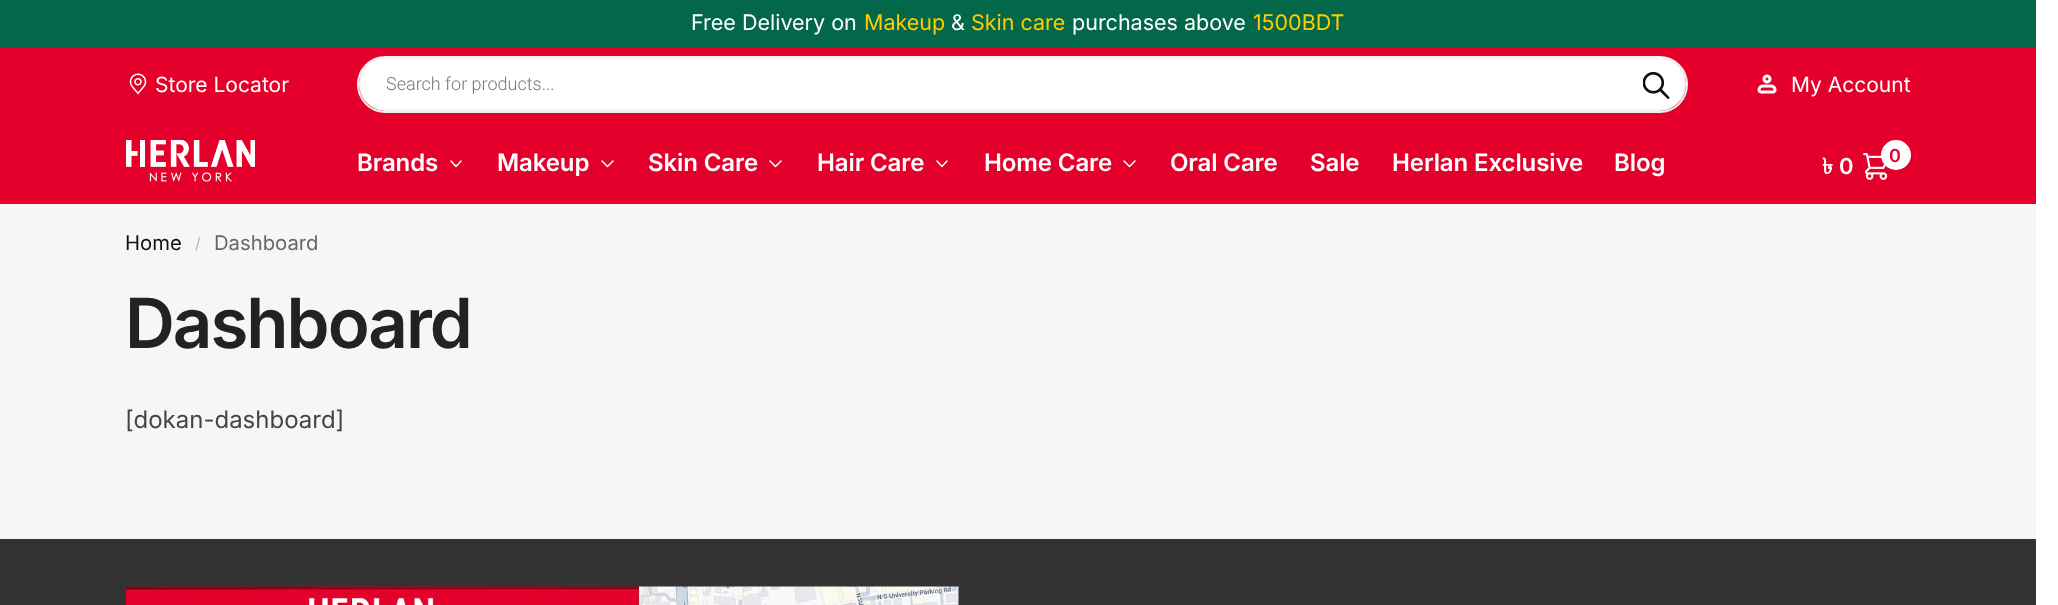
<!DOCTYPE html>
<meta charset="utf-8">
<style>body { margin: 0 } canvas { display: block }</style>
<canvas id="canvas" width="2058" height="605"></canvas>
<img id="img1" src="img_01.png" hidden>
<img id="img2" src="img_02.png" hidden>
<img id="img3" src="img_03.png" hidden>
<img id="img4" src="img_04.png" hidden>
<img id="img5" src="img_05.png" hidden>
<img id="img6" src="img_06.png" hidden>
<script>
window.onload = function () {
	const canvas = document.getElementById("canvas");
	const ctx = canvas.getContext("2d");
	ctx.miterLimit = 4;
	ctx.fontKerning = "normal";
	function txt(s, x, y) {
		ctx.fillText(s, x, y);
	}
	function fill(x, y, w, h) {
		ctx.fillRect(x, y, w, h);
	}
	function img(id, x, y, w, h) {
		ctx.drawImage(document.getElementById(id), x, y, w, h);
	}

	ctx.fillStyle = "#F6F6F6";
	fill(0, 0, 2058, 605);
	ctx.fillStyle = "#03684A";
	fill(0, 0, 2036, 47);
	ctx.fillStyle = "#FFFFFF";
	fill(2036, 0, 22, 605);
	ctx.fillStyle = "#E4002B";
	fill(0, 47, 2036, 157);
	img("img1", 129, 73, 18, 22);
	ctx.beginPath();
	ctx.roundRect(358, 57, 1329, 55, 27.5);
	ctx.strokeStyle = "#EEEEEE";
	ctx.lineWidth = 2;
	ctx.stroke();
	ctx.fillStyle = "#FFFFFF";
	ctx.beginPath();
	ctx.roundRect(360, 58, 1325, 52, 26);
	ctx.fill();
	ctx.strokeStyle = "#F6F6F6";
	ctx.stroke();
	img("img2", 1643, 72, 27, 27);
	img("img3", 1757, 74, 20, 20);
	img("img4", 126, 140, 129, 42);
	ctx.beginPath();
	ctx.moveTo(461, 161);
	ctx.lineTo(456, 166.5);
	ctx.lineTo(451, 161);
	ctx.strokeStyle = "#FFFFFF";
	ctx.lineWidth = 1.5;
	ctx.lineCap = "round";
	ctx.lineJoin = "round";
	ctx.stroke();
	ctx.beginPath();
	ctx.moveTo(613, 161);
	ctx.lineTo(607.5, 166.5);
	ctx.lineTo(602, 161);
	ctx.stroke();
	ctx.beginPath();
	ctx.moveTo(781, 161);
	ctx.lineTo(775.5, 166.5);
	ctx.lineTo(770, 161);
	ctx.stroke();
	ctx.beginPath();
	ctx.moveTo(947, 161);
	ctx.lineTo(942, 166.5);
	ctx.lineTo(937, 161);
	ctx.stroke();
	ctx.beginPath();
	ctx.moveTo(1135, 161);
	ctx.lineTo(1129.5, 166.5);
	ctx.lineTo(1124, 161);
	ctx.stroke();
	img("img5", 1863, 153, 25, 27);
	ctx.beginPath();
	ctx.arc(1896, 155, 14, 0, Math.PI * 2);
	ctx.fill();
	ctx.lineWidth = 2;
	ctx.stroke();
	ctx.fillStyle = "#333333";
	fill(0, 539, 2036, 66);
	img("img6", 126, 586, 833, 19);
	ctx.font = "21.5px Inter";
	ctx.fillStyle = "#FFFFFF";
	txt("Free Delivery on", 691, 30);
	ctx.fillStyle = "#FFCC00";
	txt("Makeup", 864, 30);
	ctx.fillStyle = "#FFFFFF";
	txt("&", 951, 30);
	ctx.fillStyle = "#FFCC00";
	txt("Skin care", 971, 30);
	ctx.fillStyle = "#FFFFFF";
	txt("purchases above", 1072, 30);
	ctx.fillStyle = "#FFCC00";
	txt("1500BDT", 1253, 30);
	ctx.font = "21px Inter";
	ctx.fillStyle = "#FFFFFF";
	txt("Store Locator", 155, 92);
	ctx.font = "300 18px Roboto";
	ctx.fillStyle = "#777777";
	txt("Search for products...", 386, 90);
	ctx.font = "21px Inter";
	ctx.fillStyle = "#FFFFFF";
	txt("My Account", 1791, 92);
	ctx.letterSpacing = "-0.1px";
	ctx.font = "600 24px Inter";
	txt("Brands", 357, 171);
	txt("Makeup", 497, 171);
	txt("Skin Care", 648, 171);
	txt("Hair Care", 817, 171);
	txt("Home Care", 984, 171);
	txt("Oral Care", 1170, 171);
	txt("Sale", 1310, 171);
	txt("Herlan Exclusive", 1392, 171);
	txt("Blog", 1614, 171);
	ctx.font = "600 18px Inter";
	ctx.fillStyle = "#E4002B";
	txt("0", 1889, 162);
	ctx.font = "bold 22px Lohit Bengali";
	ctx.fillStyle = "#FFFFFF";
	txt("৳", 1822, 174);
	ctx.font = "600 22px Inter";
	txt("0", 1839, 174);
	ctx.letterSpacing = "0px";
	ctx.font = "20.25px Inter";
	ctx.fillStyle = "#111111";
	txt("Home", 125, 250);
	ctx.font = "16px Inter";
	ctx.fillStyle = "#BCBCBC";
	txt("/", 195, 249);
	ctx.font = "20.25px Inter";
	ctx.fillStyle = "#666666";
	txt("Dashboard", 214, 250);
	ctx.letterSpacing = "-2px";
	ctx.font = "600 69px Inter";
	ctx.fillStyle = "#222222";
	txt("Dashboard", 125, 348);
	ctx.letterSpacing = "0px";
	ctx.font = "24px Inter";
	ctx.fillStyle = "#444444";
	txt("[dokan-dashboard]", 125, 428);
};
</script>
